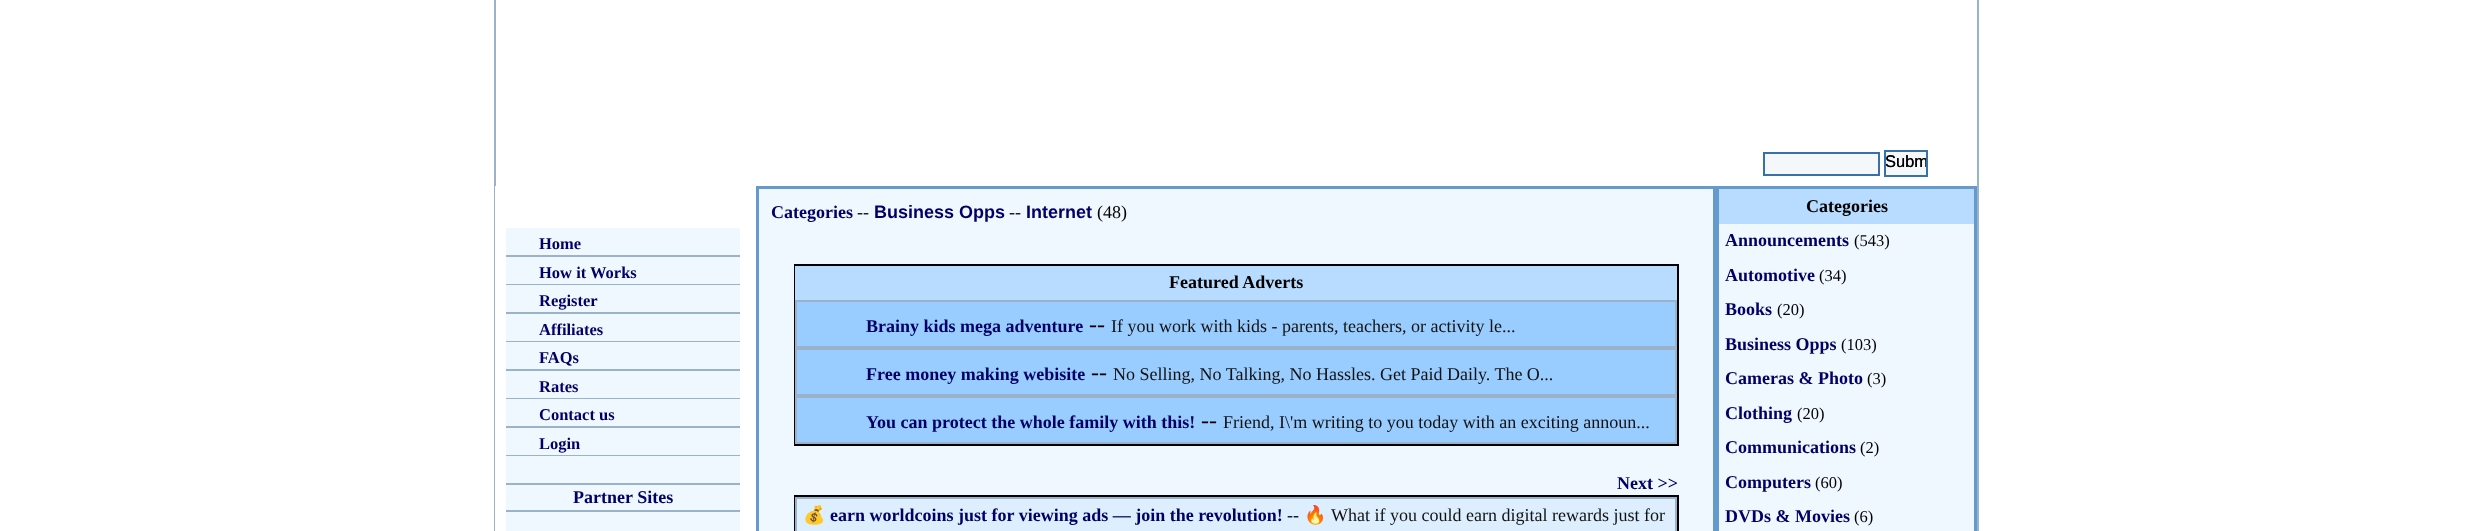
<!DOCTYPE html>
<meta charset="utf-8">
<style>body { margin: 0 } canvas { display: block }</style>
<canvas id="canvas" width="2471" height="531"></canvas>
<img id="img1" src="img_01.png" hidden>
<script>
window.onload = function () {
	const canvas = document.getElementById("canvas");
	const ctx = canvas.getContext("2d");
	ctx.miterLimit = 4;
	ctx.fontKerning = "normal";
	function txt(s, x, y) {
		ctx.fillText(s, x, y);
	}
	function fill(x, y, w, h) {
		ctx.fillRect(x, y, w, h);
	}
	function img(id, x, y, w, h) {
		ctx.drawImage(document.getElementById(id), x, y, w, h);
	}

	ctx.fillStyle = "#FFFFFF";
	fill(0, 0, 2471, 531);
	ctx.fillStyle = "#9AB3CA";
	fill(1977, 0, 2, 531);
	fill(494, 0, 2, 186);
	ctx.fillStyle = "#F4F8FB";
	ctx.beginPath();
	ctx.rect(1764, 153, 115, 22);
	ctx.fill();
	ctx.strokeStyle = "#3871A9";
	ctx.lineWidth = 2;
	ctx.stroke();
	ctx.beginPath();
	ctx.rect(1885, 151, 42, 25);
	ctx.fill();
	ctx.stroke();
	img("img1", 1885, 155, 41, 12);
	ctx.fillStyle = "#9AB3CA";
	fill(494, 186, 1, 345);
	ctx.fillStyle = "#F0F8FF";
	fill(506, 228, 234, 27);
	ctx.fillStyle = "#9AB3CA";
	fill(506, 255, 234, 2);
	ctx.fillStyle = "#F0F8FF";
	fill(506, 257, 234, 27);
	ctx.fillStyle = "#9AB3CA";
	fill(506, 284, 234, 1);
	ctx.fillStyle = "#F0F8FF";
	fill(506, 285, 234, 27);
	ctx.fillStyle = "#9AB3CA";
	fill(506, 312, 234, 2);
	ctx.fillStyle = "#F0F8FF";
	fill(506, 314, 234, 27);
	ctx.fillStyle = "#9AB3CA";
	fill(506, 341, 234, 1);
	ctx.fillStyle = "#F0F8FF";
	fill(506, 342, 234, 27);
	ctx.fillStyle = "#9AB3CA";
	fill(506, 369, 234, 2);
	ctx.fillStyle = "#F0F8FF";
	fill(506, 371, 234, 27);
	ctx.fillStyle = "#9AB3CA";
	fill(506, 398, 234, 1);
	ctx.fillStyle = "#F0F8FF";
	fill(506, 399, 234, 27);
	ctx.fillStyle = "#9AB3CA";
	fill(506, 426, 234, 2);
	ctx.fillStyle = "#F0F8FF";
	fill(506, 428, 234, 27);
	ctx.fillStyle = "#9AB3CA";
	fill(506, 455, 234, 1);
	ctx.fillStyle = "#F0F8FF";
	fill(506, 456, 234, 27);
	ctx.fillStyle = "#9AB3CA";
	fill(506, 483, 234, 2);
	ctx.fillStyle = "#F0F8FF";
	fill(506, 485, 234, 25);
	ctx.fillStyle = "#9AB3CA";
	fill(506, 510, 234, 2);
	ctx.fillStyle = "#F0F8FF";
	fill(506, 512, 234, 19);
	ctx.beginPath();
	ctx.rect(757.5, 187.5, 957, 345);
	ctx.fill();
	ctx.strokeStyle = "#6699CC";
	ctx.lineWidth = 3;
	ctx.stroke();
	ctx.strokeStyle = "#000000";
	ctx.lineWidth = 2;
	ctx.strokeRect(795, 265, 883, 180);
	ctx.fillStyle = "#B7DCFF";
	fill(795, 266, 882, 34);
	ctx.fillStyle = "#99CCFF";
	ctx.beginPath();
	ctx.rect(796, 301, 880, 46);
	ctx.fill();
	ctx.strokeStyle = "#9AB3CA";
	ctx.stroke();
	ctx.beginPath();
	ctx.rect(796, 349, 880, 46);
	ctx.fill();
	ctx.stroke();
	ctx.beginPath();
	ctx.rect(796, 397, 880, 46);
	ctx.fill();
	ctx.stroke();
	ctx.fillStyle = "#DDEFFF";
	fill(797, 499, 878, 32);
	ctx.strokeStyle = "#000000";
	ctx.strokeRect(795, 496, 883, 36);
	ctx.strokeStyle = "#9AB3CA";
	ctx.strokeRect(796, 498, 880, 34);
	ctx.fillStyle = "#F0F8FF";
	fill(1719, 224, 255, 307);
	ctx.strokeStyle = "#6699CC";
	ctx.lineWidth = 3;
	ctx.strokeRect(1717.5, 187.5, 258, 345);
	ctx.fillStyle = "#B7DCFF";
	fill(1719, 189, 255, 35);
	ctx.save();
	ctx.beginPath();
	ctx.rect(1886, 152, 40, 24);
	ctx.clip();
	ctx.font = "16.5px Liberation Sans";
	ctx.fillStyle = "#000000";
	txt("Subm", 1885, 167);
	ctx.restore();
	ctx.font = "bold 16.5px Liberation Serif";
	ctx.fillStyle = "#000066";
	txt("Home", 539, 249);
	txt("How it Works", 539, 278);
	txt("Register", 539, 306);
	txt("Affiliates", 539, 335);
	txt("FAQs", 539, 363);
	txt("Rates", 539, 392);
	txt("Contact us", 539, 420);
	txt("Login", 539, 449);
	ctx.font = "bold 18px Liberation Serif";
	txt("Partner Sites", 573, 503);
	txt("Categories", 771, 218);
	ctx.font = "18px Liberation Serif";
	ctx.fillStyle = "#000000";
	txt("--", 857, 218);
	ctx.font = "bold 18px Liberation Sans";
	ctx.fillStyle = "#000066";
	txt("Business Opps", 874, 218);
	ctx.font = "18px Liberation Serif";
	ctx.fillStyle = "#000000";
	txt("--", 1009, 218);
	ctx.font = "bold 18px Liberation Sans";
	ctx.fillStyle = "#000066";
	txt("Internet", 1026, 218);
	ctx.font = "18px Liberation Serif";
	ctx.fillStyle = "#000000";
	txt("(48)", 1097, 218);
	ctx.font = "bold 18px Liberation Serif";
	txt("Featured Adverts", 1169, 288);
	ctx.fillStyle = "#000066";
	txt("Brainy kids mega adventure", 866, 332);
	ctx.font = "24px Liberation Serif";
	ctx.fillStyle = "#000000";
	txt("--", 1089, 332);
	ctx.font = "18px Liberation Serif";
	ctx.fillStyle = "#111111";
	txt("If you work with kids - parents, teachers, or activity le...", 1111, 332);
	ctx.font = "bold 18px Liberation Serif";
	ctx.fillStyle = "#000066";
	txt("Free money making webisite", 866, 380);
	ctx.font = "24px Liberation Serif";
	ctx.fillStyle = "#000000";
	txt("--", 1091, 380);
	ctx.font = "18px Liberation Serif";
	ctx.fillStyle = "#111111";
	txt("No Selling, No Talking, No Hassles. Get Paid Daily. The O...", 1113, 380);
	ctx.font = "bold 18px Liberation Serif";
	ctx.fillStyle = "#000066";
	txt("You can protect the whole family with this!", 866, 428);
	ctx.font = "24px Liberation Serif";
	ctx.fillStyle = "#000000";
	txt("--", 1201, 428);
	ctx.font = "18px Liberation Serif";
	ctx.fillStyle = "#111111";
	txt("Friend, I\\'m writing to you today with an exciting announ...", 1223, 428);
	ctx.font = "bold 18px Liberation Serif";
	ctx.fillStyle = "#000066";
	txt("Next >>", 1617, 489);
	ctx.font = "bold 18px Noto Color Emoji";
	txt("💰", 803, 521);
	ctx.font = "bold 18px Liberation Serif";
	txt("earn worldcoins just for viewing ads — join the revolution!", 830, 521);
	ctx.font = "18px Liberation Serif";
	ctx.fillStyle = "#000000";
	txt("--", 1287, 521);
	ctx.font = "18px Noto Color Emoji";
	ctx.fillStyle = "#111111";
	txt("🔥", 1304, 521);
	ctx.font = "18px Liberation Serif";
	txt("What if you could earn digital rewards just for", 1331, 521);
	ctx.font = "bold 18px Liberation Serif";
	ctx.fillStyle = "#000000";
	txt("Categories", 1806, 212);
	ctx.fillStyle = "#000066";
	txt("Announcements", 1725, 246);
	ctx.font = "16.5px Liberation Serif";
	ctx.fillStyle = "#000000";
	txt("(543)", 1854, 246);
	ctx.font = "bold 18px Liberation Serif";
	ctx.fillStyle = "#000066";
	txt("Automotive", 1725, 281);
	ctx.font = "16.5px Liberation Serif";
	ctx.fillStyle = "#000000";
	txt("(34)", 1819, 281);
	ctx.font = "bold 18px Liberation Serif";
	ctx.fillStyle = "#000066";
	txt("Books", 1725, 315);
	ctx.font = "16.5px Liberation Serif";
	ctx.fillStyle = "#000000";
	txt("(20)", 1777, 315);
	ctx.font = "bold 18px Liberation Serif";
	ctx.fillStyle = "#000066";
	txt("Business Opps", 1725, 350);
	ctx.font = "16.5px Liberation Serif";
	ctx.fillStyle = "#000000";
	txt("(103)", 1841, 350);
	ctx.font = "bold 18px Liberation Serif";
	ctx.fillStyle = "#000066";
	txt("Cameras & Photo", 1725, 384);
	ctx.font = "16.5px Liberation Serif";
	ctx.fillStyle = "#000000";
	txt("(3)", 1867, 384);
	ctx.font = "bold 18px Liberation Serif";
	ctx.fillStyle = "#000066";
	txt("Clothing", 1725, 419);
	ctx.font = "16.5px Liberation Serif";
	ctx.fillStyle = "#000000";
	txt("(20)", 1797, 419);
	ctx.font = "bold 18px Liberation Serif";
	ctx.fillStyle = "#000066";
	txt("Communications", 1725, 453);
	ctx.font = "16.5px Liberation Serif";
	ctx.fillStyle = "#000000";
	txt("(2)", 1860, 453);
	ctx.font = "bold 18px Liberation Serif";
	ctx.fillStyle = "#000066";
	txt("Computers", 1725, 488);
	ctx.font = "16.5px Liberation Serif";
	ctx.fillStyle = "#000000";
	txt("(60)", 1815, 488);
	ctx.font = "bold 18px Liberation Serif";
	ctx.fillStyle = "#000066";
	txt("DVDs & Movies", 1725, 522);
	ctx.font = "16.5px Liberation Serif";
	ctx.fillStyle = "#000000";
	txt("(6)", 1854, 522);
};
</script>
